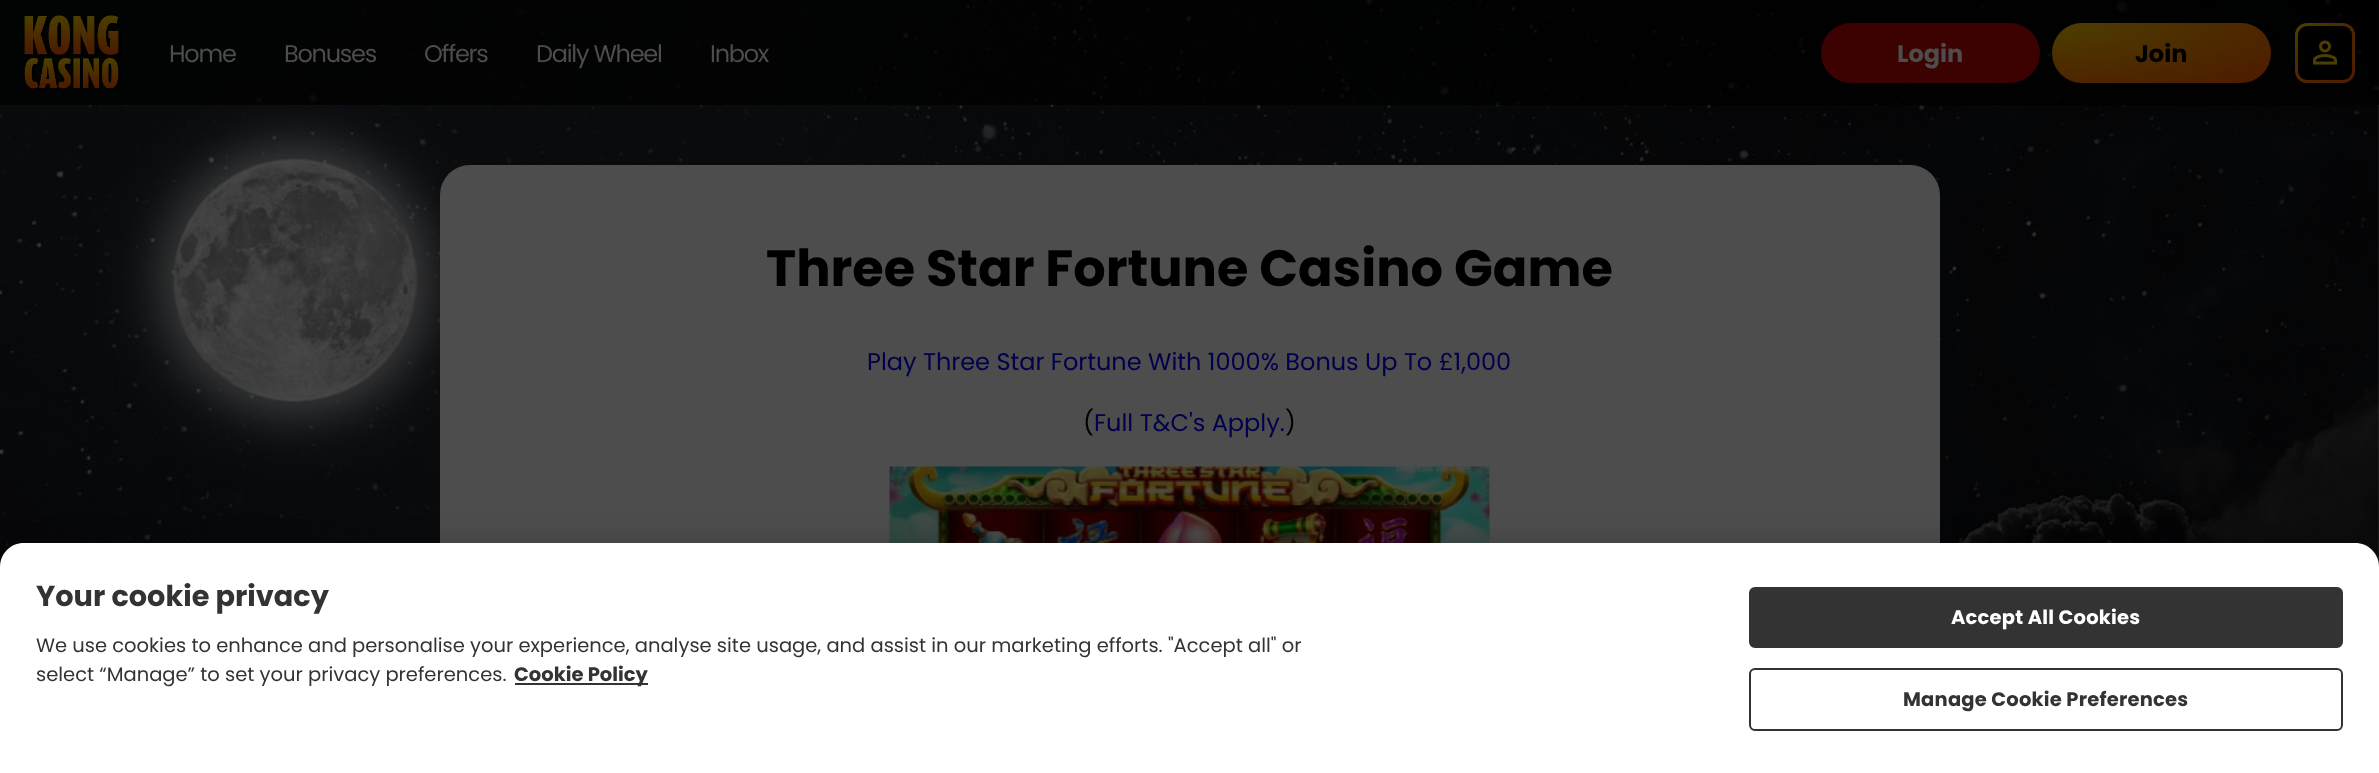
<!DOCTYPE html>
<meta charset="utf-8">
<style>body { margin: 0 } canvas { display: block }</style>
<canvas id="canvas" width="2379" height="773"></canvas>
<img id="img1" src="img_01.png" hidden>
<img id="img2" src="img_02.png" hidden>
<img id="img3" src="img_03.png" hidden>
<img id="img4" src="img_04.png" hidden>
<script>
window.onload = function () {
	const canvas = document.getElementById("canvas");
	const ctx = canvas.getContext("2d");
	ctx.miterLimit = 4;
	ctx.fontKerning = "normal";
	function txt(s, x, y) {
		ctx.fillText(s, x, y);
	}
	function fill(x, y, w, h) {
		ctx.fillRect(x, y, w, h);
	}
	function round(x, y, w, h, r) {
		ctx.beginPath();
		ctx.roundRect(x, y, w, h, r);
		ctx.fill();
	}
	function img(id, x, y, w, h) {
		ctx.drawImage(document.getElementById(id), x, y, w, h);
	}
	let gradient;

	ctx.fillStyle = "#FFFFFF";
	fill(0, 0, 2379, 773);
	img("img1", 0, 0, 2379, 567);
	ctx.fillStyle = "rgba(0, 0, 0, 0.7)";
	fill(0, 0, 2379, 105);
	img("img2", 24, 15, 98, 75);
	ctx.fillStyle = "#3C0201";
	round(1821, 23, 219, 60, 30);
	gradient = ctx.createRadialGradient(2052, 83.88, 0, 2052, 83.88, 310);
	gradient.addColorStop(0, "#4D3E00");
	gradient.addColorStop(1, "#4D1A00");
	ctx.fillStyle = gradient;
	ctx.beginPath();
	ctx.roundRect(2052, 23, 219, 60, 30);
	ctx.save();
	ctx.clip();
	ctx.scale(1, 85 / 310);
	ctx.fillRect(0, 0, 2379, 2820);
	ctx.restore();
	gradient = ctx.createRadialGradient(2295, 23, 0, 2295, 23, 85);
	gradient.addColorStop(0, "#4D3E00");
	gradient.addColorStop(1, "#4D1A00");
	ctx.fillStyle = gradient;
	round(2295, 23, 60, 60, 12);
	ctx.fillStyle = "#000000";
	round(2298, 26, 54, 54, 9);
	img("img3", 2313, 40, 24, 25);
	ctx.fillStyle = "#4D4D4D";
	round(440, 165, 1500, 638, 30);
	img("img4", 889, 466, 601, 77);
	ctx.fillStyle = "rgba(0, 0, 0, 0.2)";
	ctx.filter = "blur(13.5px)";
	ctx.beginPath();
	ctx.roundRect(0, 543, 2379, 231, 24);
	ctx.fill();
	ctx.filter = "none";
	ctx.fillStyle = "#FFFFFF";
	ctx.beginPath();
	ctx.moveTo(24, 543);
	ctx.lineTo(2355, 543);
	ctx.bezierCurveTo(2368.5, 543, 2379, 553.5, 2379, 567);
	ctx.lineTo(2379, 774);
	ctx.lineTo(0, 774);
	ctx.lineTo(0, 567);
	ctx.bezierCurveTo(0, 553.5, 10.5, 543, 24, 543);
	ctx.closePath();
	ctx.fill();
	ctx.fillStyle = "#333333";
	fill(515, 683, 133, 2);
	ctx.beginPath();
	ctx.roundRect(1750, 588, 592, 59, 5);
	ctx.fill();
	ctx.strokeStyle = "#333333";
	ctx.lineWidth = 2;
	ctx.stroke();
	ctx.beginPath();
	ctx.roundRect(1750, 669, 592, 61, 5);
	ctx.stroke();
	ctx.letterSpacing = "-1.25px";
	ctx.font = "24px Poppins";
	ctx.fillStyle = "#4D4D4D";
	txt("Home", 169, 62);
	txt("Bonuses", 284, 62);
	txt("Offers", 424, 62);
	txt("Daily Wheel", 536, 62);
	txt("Inbox", 710, 62);
	ctx.letterSpacing = "0px";
	ctx.font = "bold 24px Poppins";
	txt("Login", 1897, 62);
	ctx.fillStyle = "#000000";
	txt("Join", 2135, 62);
	ctx.font = "bold 51px Poppins";
	txt("Three Star Fortune Casino Game", 766, 286);
	ctx.font = "24px Poppins";
	ctx.fillStyle = "#00004D";
	txt("Play Three Star Fortune With 1000% Bonus Up To £1,000", 867, 370);
	ctx.fillStyle = "#000000";
	txt("(", 1083, 431);
	ctx.fillStyle = "#00004D";
	txt("Full T&C's Apply.", 1094, 431);
	ctx.fillStyle = "#000000";
	txt(")", 1285, 431);
	ctx.font = "bold 28.75px Poppins";
	ctx.fillStyle = "#333333";
	txt("Your cookie privacy", 36, 606);
	ctx.font = "19.5px Poppins";
	txt("We use cookies to enhance and personalise your experience, analyse site usage, and assist in our marketing efforts. \"Accept all\" or", 36, 652);
	txt("select “Manage” to set your privacy preferences.", 36, 681);
	ctx.font = "bold 19.5px Poppins";
	txt("Cookie Policy", 514, 681);
	ctx.letterSpacing = "0.2px";
	ctx.fillStyle = "#FFFFFF";
	txt("Accept All Cookies", 1951, 624);
	ctx.fillStyle = "#333333";
	txt("Manage Cookie Preferences", 1903, 706);
};
</script>
